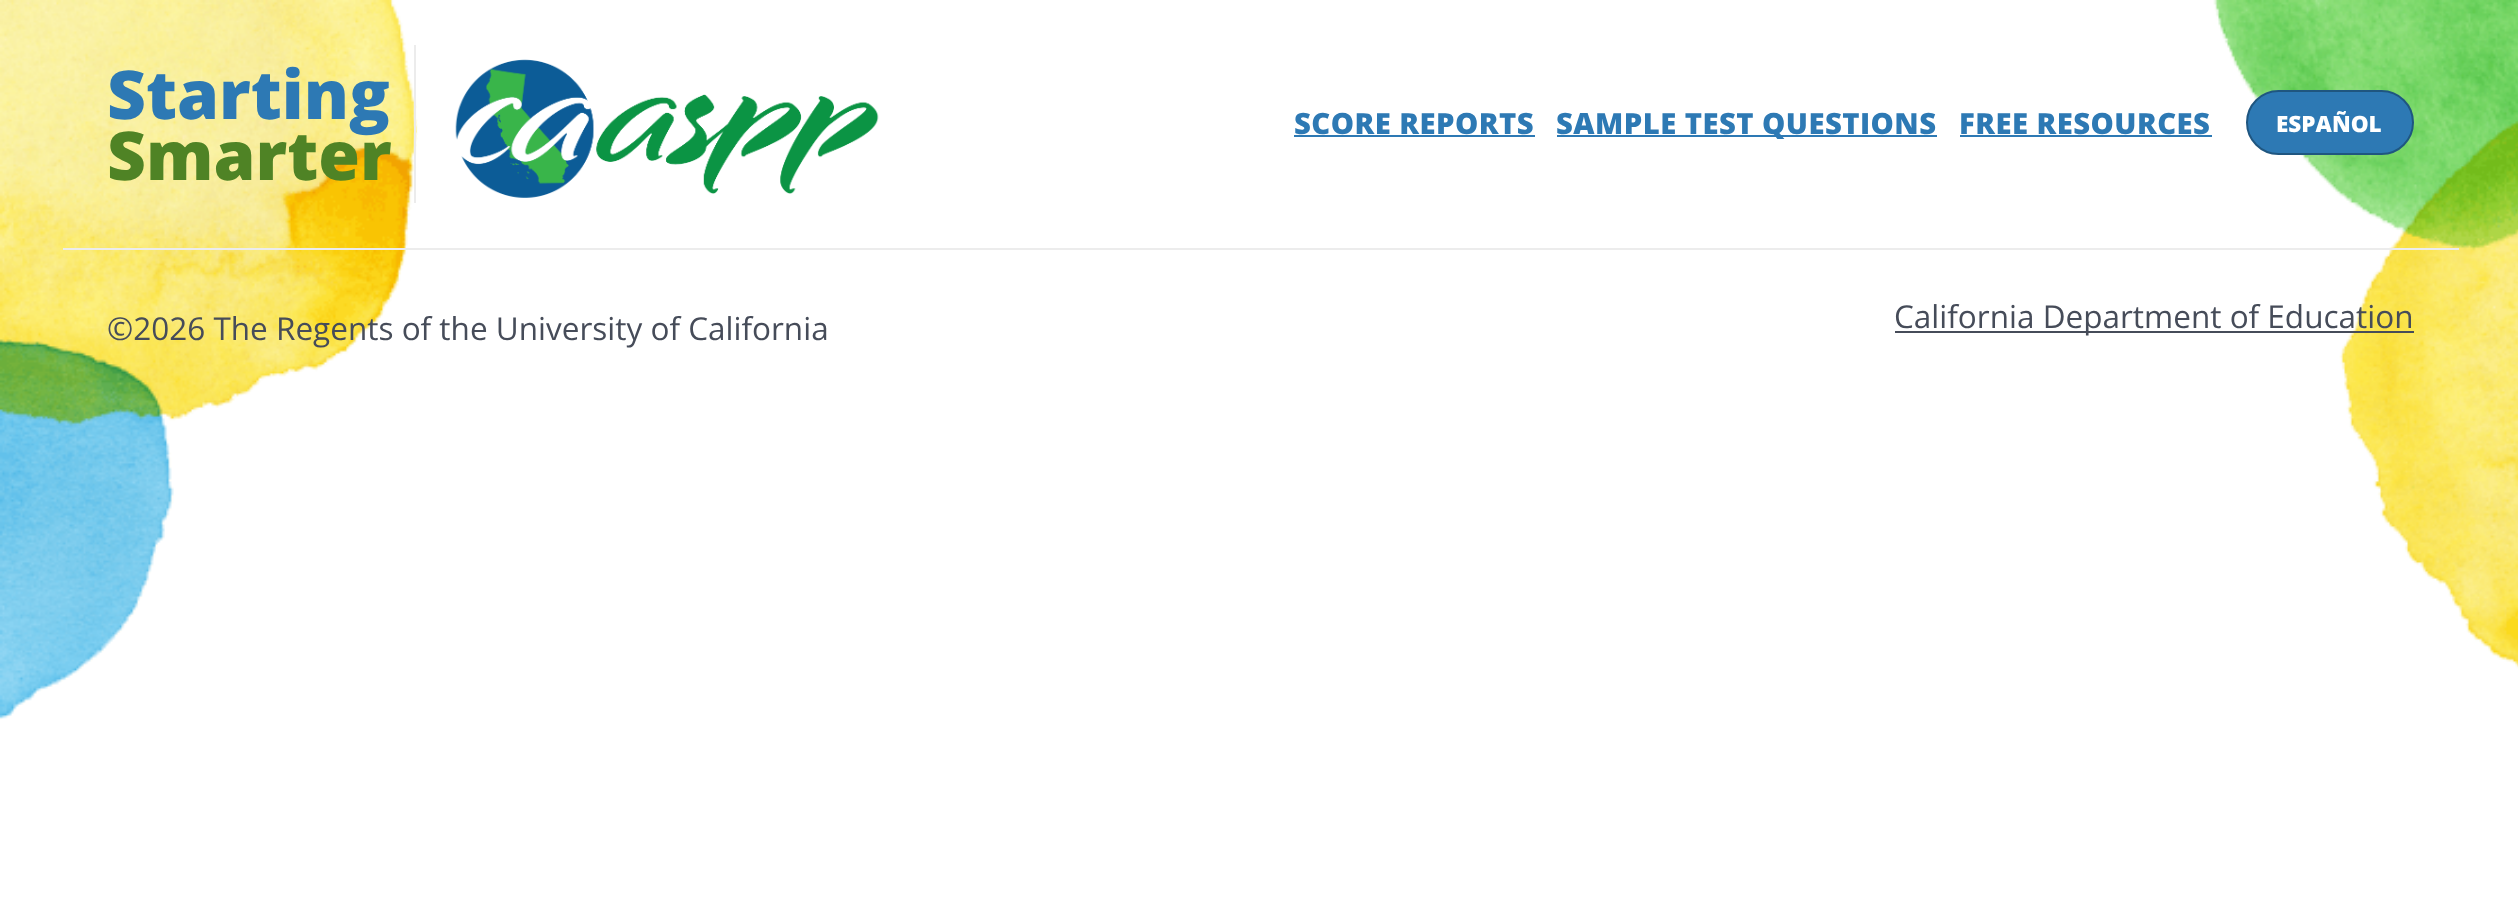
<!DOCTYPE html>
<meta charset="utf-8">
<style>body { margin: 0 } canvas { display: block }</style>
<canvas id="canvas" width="2518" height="906"></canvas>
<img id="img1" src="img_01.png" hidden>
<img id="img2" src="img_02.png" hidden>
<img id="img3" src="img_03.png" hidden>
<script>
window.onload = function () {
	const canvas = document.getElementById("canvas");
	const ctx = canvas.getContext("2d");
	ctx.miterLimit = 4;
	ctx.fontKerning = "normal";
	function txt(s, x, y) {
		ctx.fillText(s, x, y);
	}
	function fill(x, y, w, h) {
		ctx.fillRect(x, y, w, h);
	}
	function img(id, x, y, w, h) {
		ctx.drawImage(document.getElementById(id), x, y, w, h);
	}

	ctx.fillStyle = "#FFFFFF";
	fill(0, 0, 2518, 906);
	img("img1", 0, 0, 418, 720);
	img("img2", 2213, 0, 305, 669);
	ctx.fillStyle = "#ECECEC";
	fill(63, 248, 2396, 2);
	fill(414, 45, 2, 158);
	img("img3", 455, 59, 424, 139);
	ctx.fillStyle = "#2D79B4";
	fill(1294, 135, 241, 2);
	fill(1557, 135, 380, 2);
	fill(1960, 135, 252, 2);
	ctx.beginPath();
	ctx.roundRect(2247, 91, 166, 63, 31.5);
	ctx.fill();
	ctx.strokeStyle = "#1F5680";
	ctx.lineWidth = 2;
	ctx.stroke();
	ctx.fillStyle = "#464C59";
	fill(1895, 331, 519, 2);
	ctx.font = "800 67.5px Open Sans";
	ctx.fillStyle = "#2D79B4";
	txt("Starting", 107, 119);
	ctx.fillStyle = "#4F8325";
	txt("Smarter", 107, 180);
	ctx.letterSpacing = "0.45px";
	ctx.font = "800 29.25px Open Sans";
	ctx.fillStyle = "#2D79B4";
	txt("SCORE REPORTS", 1294, 134);
	txt("SAMPLE TEST QUESTIONS", 1556, 134);
	txt("FREE RESOURCES", 1959, 134);
	ctx.letterSpacing = "0px";
	ctx.font = "800 22.5px Open Sans";
	ctx.fillStyle = "#FFFFFF";
	txt("ESPAÑOL", 2276, 132);
	ctx.font = "31.5px Open Sans";
	ctx.fillStyle = "#464C59";
	txt("©2026 The Regents of the University of California", 107, 340);
	txt("California Department of Education", 1894, 328);
};
</script>
